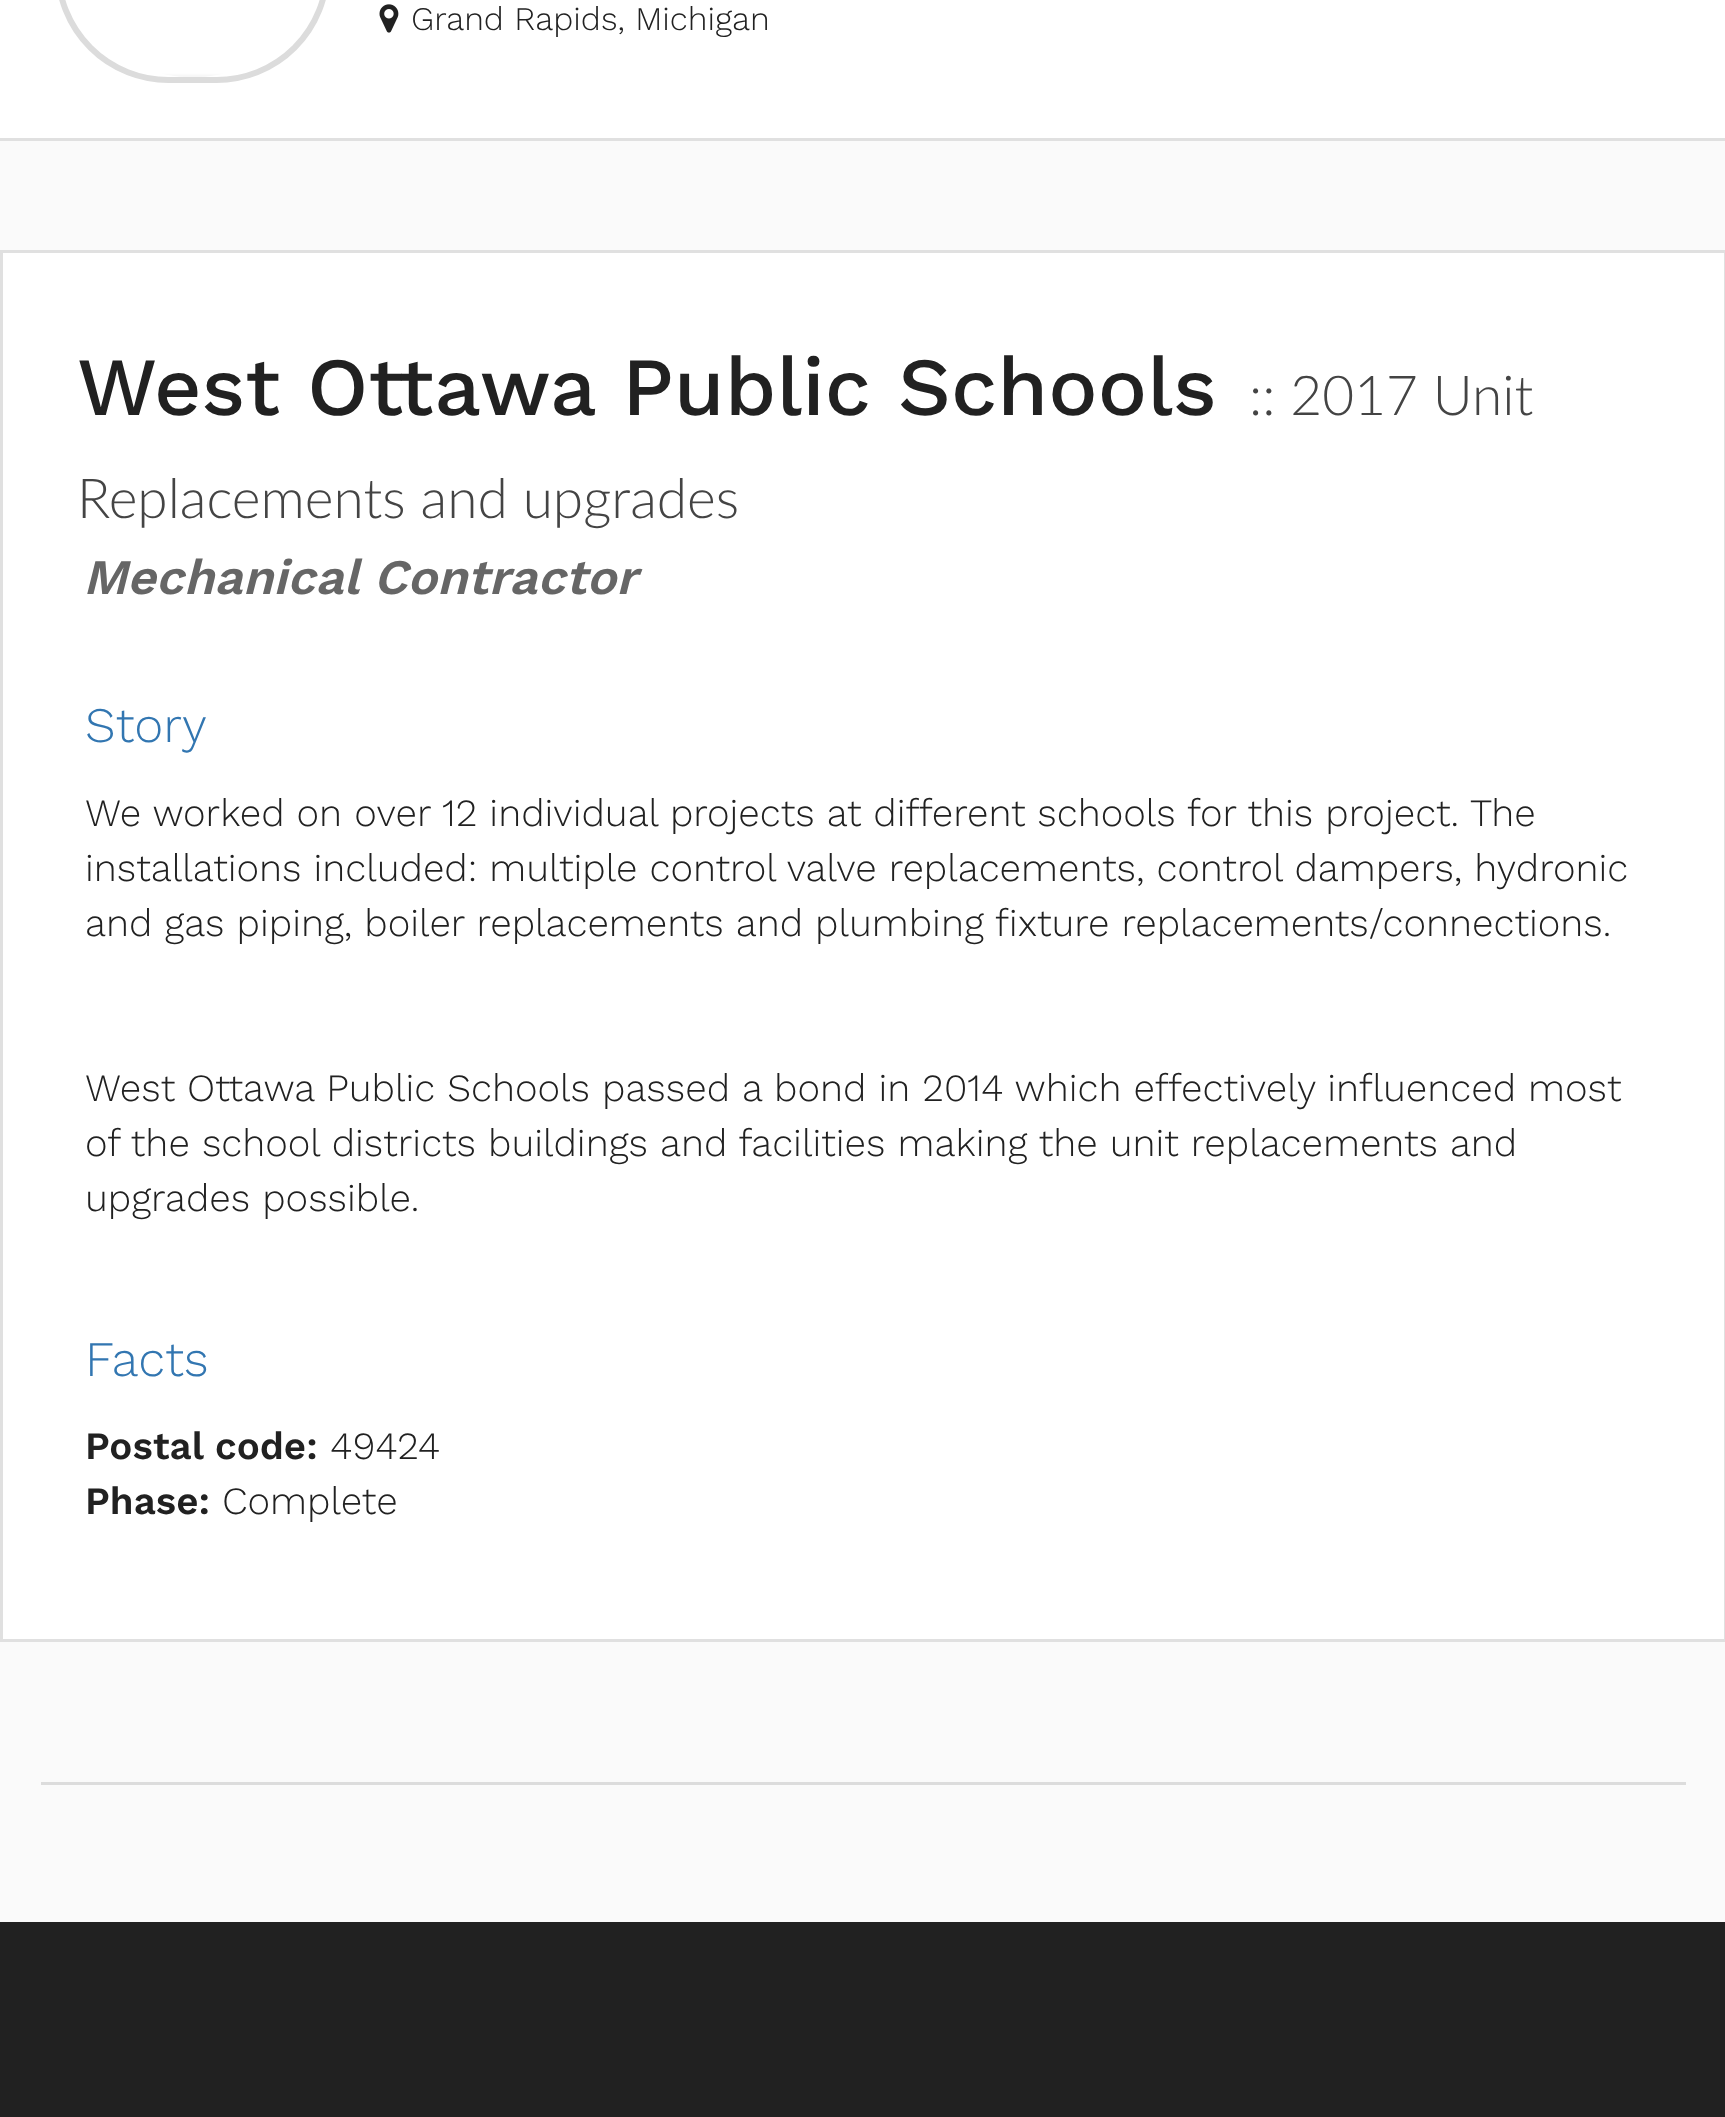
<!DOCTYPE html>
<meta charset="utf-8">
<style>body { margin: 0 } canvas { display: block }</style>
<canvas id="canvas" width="1725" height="2117"></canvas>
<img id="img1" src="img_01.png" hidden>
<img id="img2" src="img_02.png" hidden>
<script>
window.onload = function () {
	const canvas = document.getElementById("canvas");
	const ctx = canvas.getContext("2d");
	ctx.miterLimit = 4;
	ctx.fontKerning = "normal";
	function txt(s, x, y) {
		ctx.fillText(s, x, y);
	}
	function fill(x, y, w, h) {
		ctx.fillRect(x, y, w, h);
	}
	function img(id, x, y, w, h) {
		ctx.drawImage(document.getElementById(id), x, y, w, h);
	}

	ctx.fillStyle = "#FAFAFA";
	fill(0, 0, 1725, 2117);
	ctx.fillStyle = "#FFFFFF";
	fill(0, 0, 1725, 138);
	ctx.fillStyle = "#E0E0E0";
	fill(0, 138, 1725, 3);
	ctx.beginPath();
	ctx.roundRect(58, -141, 269, 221, 134.5);
	ctx.strokeStyle = "#DCDCDC";
	ctx.lineWidth = 6;
	ctx.stroke();
	img("img1", 72, 0, 241, 77);
	img("img2", 379, 4, 20, 29);
	ctx.fillStyle = "#FFFFFF";
	ctx.beginPath();
	ctx.rect(1.5, 251.5, 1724, 1389);
	ctx.fill();
	ctx.strokeStyle = "#E0E0E0";
	ctx.lineWidth = 3;
	ctx.stroke();
	ctx.fillStyle = "#DCDCDC";
	fill(41, 1782, 1645, 3);
	ctx.fillStyle = "#212121";
	fill(0, 1922, 1725, 195);
	ctx.font = "300 33px Work Sans";
	txt("Grand Rapids, Michigan", 411, 30);
	ctx.font = "500 82.5px Work Sans";
	txt("West Ottawa Public Schools", 77, 415);
	ctx.font = "300 55px Lato";
	ctx.fillStyle = "#444444";
	txt(":: 2017 Unit", 1249, 415);
	txt("Replacements and upgrades", 77, 518);
	ctx.font = "italic 600 49.5px Work Sans";
	ctx.fillStyle = "#666666";
	txt("Mechanical Contractor", 83, 594);
	ctx.font = "300 49.5px Work Sans";
	ctx.fillStyle = "#3276B1";
	txt("Story", 85, 742);
	ctx.font = "300 38.5px Work Sans";
	ctx.fillStyle = "#212121";
	txt("We worked on over 12 individual projects at different schools for this project. The", 85, 826);
	txt("installations included: multiple control valve replacements, control dampers, hydronic", 85, 881);
	txt("and gas piping, boiler replacements and plumbing fixture replacements/connections.", 85, 936);
	txt("West Ottawa Public Schools passed a bond in 2014 which effectively influenced most", 85, 1101);
	txt("of the school districts buildings and facilities making the unit replacements and", 85, 1156);
	txt("upgrades possible.", 85, 1211);
	ctx.font = "300 49.5px Work Sans";
	ctx.fillStyle = "#3276B1";
	txt("Facts", 85, 1376);
	ctx.font = "600 38.5px Work Sans";
	ctx.fillStyle = "#212121";
	txt("Postal code:", 85, 1459);
	ctx.font = "300 38.5px Work Sans";
	txt("49424", 330, 1459);
	ctx.font = "600 38.5px Work Sans";
	txt("Phase:", 85, 1514);
	ctx.font = "300 38.5px Work Sans";
	txt("Complete", 222, 1514);
};
</script>
